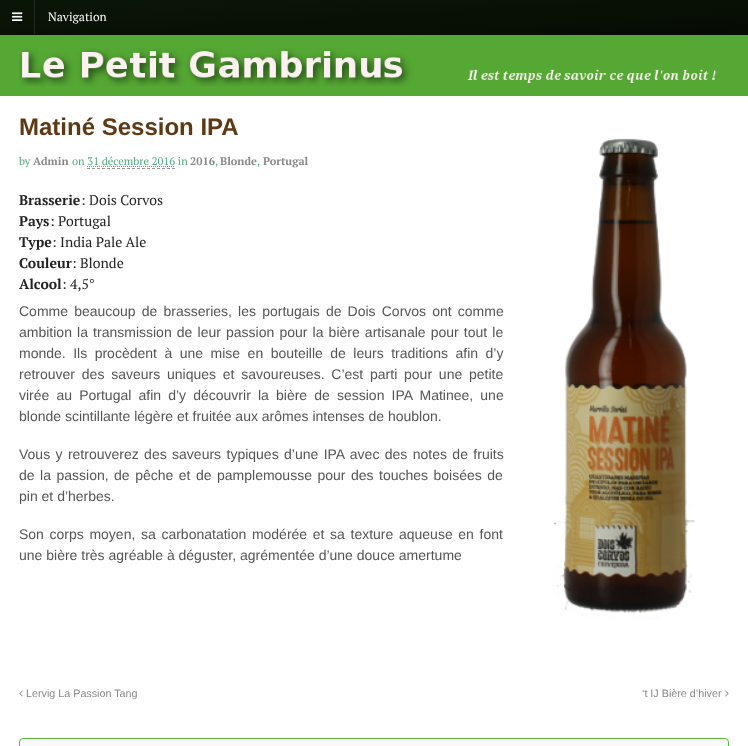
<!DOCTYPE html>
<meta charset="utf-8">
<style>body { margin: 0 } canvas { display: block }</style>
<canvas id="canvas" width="748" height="746"></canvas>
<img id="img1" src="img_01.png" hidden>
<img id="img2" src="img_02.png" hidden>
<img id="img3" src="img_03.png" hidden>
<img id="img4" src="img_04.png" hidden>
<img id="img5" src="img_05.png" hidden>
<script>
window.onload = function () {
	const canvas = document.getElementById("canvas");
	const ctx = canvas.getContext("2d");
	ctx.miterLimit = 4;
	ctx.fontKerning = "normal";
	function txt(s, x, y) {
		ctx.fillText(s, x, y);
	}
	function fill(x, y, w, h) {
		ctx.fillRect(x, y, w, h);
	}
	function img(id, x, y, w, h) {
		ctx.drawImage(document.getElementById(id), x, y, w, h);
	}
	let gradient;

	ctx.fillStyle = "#FFFFFF";
	fill(0, 0, 748, 746);
	ctx.fillStyle = "#55A834";
	fill(0, 35, 748, 61);
	gradient = ctx.createLinearGradient(372, -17, 376, 51);
	gradient.addColorStop(0, "#0B1506");
	gradient.addColorStop(1, "#060C04");
	ctx.fillStyle = gradient;
	fill(0, 0, 748, 34);
	gradient = ctx.createLinearGradient(372, -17, 376, 51);
	gradient.addColorStop(0, "#232C1F");
	gradient.addColorStop(1, "#1F241D");
	ctx.fillStyle = gradient;
	fill(34, 0, 1, 34);
	gradient = ctx.createLinearGradient(372, 17, 376, 85);
	gradient.addColorStop(0, "#091105");
	gradient.addColorStop(1, "#050A03");
	ctx.fillStyle = gradient;
	fill(0, 34, 748, 1);
	img("img1", 12, 12, 11, 9);
	img("img2", 19, 48, 697, 38);
	ctx.beginPath();
	ctx.moveTo(87, 166.5);
	ctx.lineTo(175, 166.5);
	ctx.strokeStyle = "#52AB80";
	ctx.setLineDash([1, 1]);
	ctx.stroke();
	ctx.beginPath();
	ctx.moveTo(87, 168.5);
	ctx.lineTo(175, 168.5);
	ctx.strokeStyle = "#999999";
	ctx.setLineDash([3, 2]);
	ctx.stroke();
	img("img3", 553, 138, 142, 481);
	img("img4", 19, 690, 4, 7);
	img("img5", 725, 690, 4, 7);
	ctx.fillStyle = "#F9F9F9";
	ctx.beginPath();
	ctx.roundRect(19.5, 738.5, 709, 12, 3.5);
	ctx.fill();
	ctx.strokeStyle = "#5BB73B";
	ctx.setLineDash([]);
	ctx.stroke();
	ctx.font = "12px PT Serif";
	ctx.fillStyle = "#FFFFFF";
	txt("Navigation", 48, 21);
	ctx.font = "bold 24px Liberation Sans";
	ctx.fillStyle = "#5E3914";
	txt("Matiné Session IPA", 19, 135);
	ctx.font = "11px PT Serif";
	ctx.fillStyle = "#52AB80";
	txt("by", 19, 165);
	ctx.font = "bold 11px PT Serif";
	ctx.fillStyle = "#888888";
	txt("Admin", 33, 165);
	ctx.font = "11px PT Serif";
	ctx.fillStyle = "#52AB80";
	txt("on 31 décembre 2016 in", 72, 165);
	ctx.font = "bold 11px PT Serif";
	ctx.fillStyle = "#888888";
	txt("2016", 190, 165);
	ctx.font = "11px PT Serif";
	ctx.fillStyle = "#52AB80";
	txt(",", 215, 165);
	ctx.font = "bold 11px PT Serif";
	ctx.fillStyle = "#888888";
	txt("Blonde", 220, 165);
	ctx.font = "11px PT Serif";
	ctx.fillStyle = "#52AB80";
	txt(",", 257, 165);
	ctx.font = "bold 11px PT Serif";
	ctx.fillStyle = "#888888";
	txt("Portugal", 263, 165);
	ctx.font = "bold 14px PT Serif";
	ctx.fillStyle = "#222222";
	txt("Brasserie", 19, 205);
	ctx.font = "14px PT Serif";
	txt(": Dois Corvos", 81, 205);
	ctx.font = "bold 14px PT Serif";
	txt("Pays", 19, 226);
	ctx.font = "14px PT Serif";
	txt(": Portugal", 50, 226);
	ctx.font = "bold 14px PT Serif";
	txt("Type", 19, 247);
	ctx.font = "14px PT Serif";
	txt(": India Pale Ale", 52, 247);
	ctx.font = "bold 14px PT Serif";
	txt("Couleur", 19, 268);
	ctx.font = "14px PT Serif";
	txt(": Blonde", 72, 268);
	ctx.font = "bold 14px PT Serif";
	txt("Alcool", 19, 289);
	ctx.font = "14px PT Serif";
	txt(": 4,5°", 62, 289);
	ctx.wordSpacing = "2.25px";
	ctx.font = "14px Liberation Sans";
	ctx.fillStyle = "#555555";
	txt("Comme beaucoup de brasseries, les portugais de Dois Corvos ont comme", 19, 316);
	ctx.wordSpacing = "1.25px";
	txt("ambition la transmission de leur passion pour la bière artisanale pour tout le", 19, 337);
	ctx.wordSpacing = "3.6px";
	txt("monde. Ils procèdent à une mise en bouteille de leurs traditions afin d’y", 19, 358);
	ctx.wordSpacing = "2.9px";
	txt("retrouver des saveurs uniques et savoureuses. C’est parti pour une petite", 19, 379);
	ctx.wordSpacing = "3.25px";
	txt("virée au Portugal afin d’y découvrir la bière de session IPA Matinee, une", 19, 400);
	ctx.wordSpacing = "0px";
	txt("blonde scintillante légère et fruitée aux arômes intenses de houblon.", 19, 421);
	ctx.wordSpacing = "1.5px";
	txt("Vous y retrouverez des saveurs typiques d’une IPA avec des notes de fruits", 19, 459);
	ctx.wordSpacing = "1.6px";
	txt("de la passion, de pêche et de pamplemousse pour des touches boisées de", 19, 480);
	ctx.wordSpacing = "0px";
	txt("pin et d’herbes.", 19, 501);
	ctx.wordSpacing = "1.75px";
	txt("Son corps moyen, sa carbonatation modérée et sa texture aqueuse en font", 19, 539);
	ctx.wordSpacing = "0px";
	txt("une bière très agréable à déguster, agrémentée d’une douce amertume", 19, 560);
	ctx.font = "10.75px Liberation Sans";
	ctx.fillStyle = "#888888";
	txt("Lervig La Passion Tang", 26, 697);
	txt("‘t IJ Bière d’hiver", 642, 697);
};
</script>
